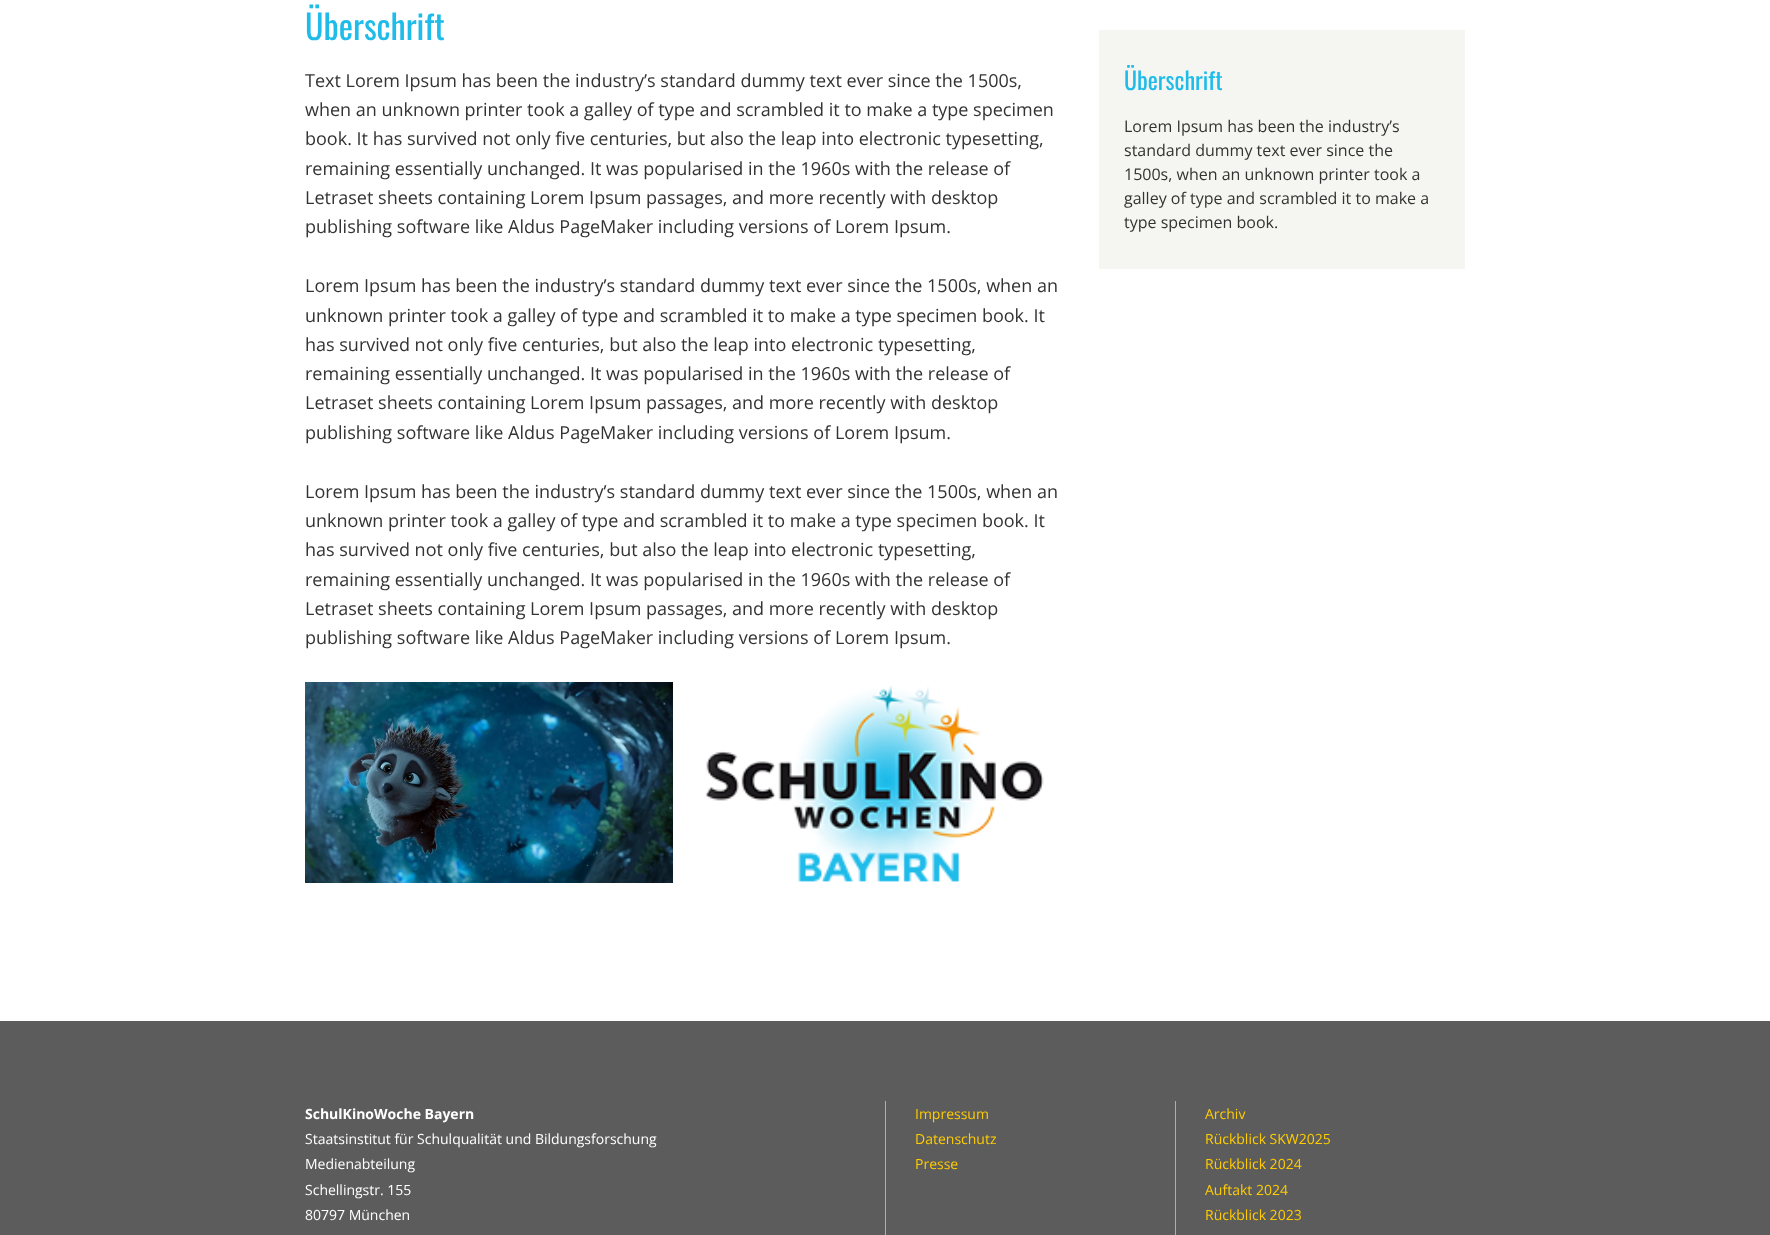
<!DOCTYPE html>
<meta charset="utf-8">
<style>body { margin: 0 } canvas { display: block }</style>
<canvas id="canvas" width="1770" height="1235"></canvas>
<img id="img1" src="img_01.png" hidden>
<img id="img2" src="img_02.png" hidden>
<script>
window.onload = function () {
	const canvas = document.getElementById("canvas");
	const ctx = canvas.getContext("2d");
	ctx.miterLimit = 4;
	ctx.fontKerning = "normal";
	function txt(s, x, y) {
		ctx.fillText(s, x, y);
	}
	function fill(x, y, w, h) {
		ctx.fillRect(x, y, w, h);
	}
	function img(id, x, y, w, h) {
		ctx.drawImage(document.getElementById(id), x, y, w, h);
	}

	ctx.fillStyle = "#FFFFFF";
	fill(0, 0, 1770, 1235);
	img("img1", 305, 682, 368, 201);
	img("img2", 705, 685, 339, 197);
	ctx.fillStyle = "#F5F5F1";
	fill(1099, 30, 366, 239);
	ctx.fillStyle = "#5C5C5C";
	fill(0, 1021, 1770, 214);
	ctx.fillStyle = "#AEAEAE";
	fill(885, 1101, 1, 134);
	fill(1175, 1101, 1, 134);
	ctx.font = "34px Oswald";
	ctx.fillStyle = "#1FBCEA";
	txt("Überschrift", 305, 40);
	ctx.font = "18px Open Sans";
	ctx.fillStyle = "#333333";
	txt("Text Lorem Ipsum has been the industry’s standard dummy text ever since the 1500s,", 305, 87);
	txt("when an unknown printer took a galley of type and scrambled it to make a type specimen", 305, 116);
	txt("book. It has survived not only five centuries, but also the leap into electronic typesetting,", 305, 145);
	txt("remaining essentially unchanged. It was popularised in the 1960s with the release of", 305, 175);
	txt("Letraset sheets containing Lorem Ipsum passages, and more recently with desktop", 305, 204);
	txt("publishing software like Aldus PageMaker including versions of Lorem Ipsum.", 305, 233);
	txt("Lorem Ipsum has been the industry’s standard dummy text ever since the 1500s, when an", 305, 292);
	txt("unknown printer took a galley of type and scrambled it to make a type specimen book. It", 305, 322);
	txt("has survived not only five centuries, but also the leap into electronic typesetting,", 305, 351);
	txt("remaining essentially unchanged. It was popularised in the 1960s with the release of", 305, 380);
	txt("Letraset sheets containing Lorem Ipsum passages, and more recently with desktop", 305, 409);
	txt("publishing software like Aldus PageMaker including versions of Lorem Ipsum.", 305, 439);
	txt("Lorem Ipsum has been the industry’s standard dummy text ever since the 1500s, when an", 305, 498);
	txt("unknown printer took a galley of type and scrambled it to make a type specimen book. It", 305, 527);
	txt("has survived not only five centuries, but also the leap into electronic typesetting,", 305, 556);
	txt("remaining essentially unchanged. It was popularised in the 1960s with the release of", 305, 586);
	txt("Letraset sheets containing Lorem Ipsum passages, and more recently with desktop", 305, 615);
	txt("publishing software like Aldus PageMaker including versions of Lorem Ipsum.", 305, 644);
	ctx.font = "24px Oswald";
	ctx.fillStyle = "#1FBCEA";
	txt("Überschrift", 1124, 90);
	ctx.font = "16px Open Sans";
	ctx.fillStyle = "#333333";
	txt("Lorem Ipsum has been the industry’s", 1124, 132);
	txt("standard dummy text ever since the", 1124, 156);
	txt("1500s, when an unknown printer took a", 1124, 180);
	txt("galley of type and scrambled it to make a", 1124, 204);
	txt("type specimen book.", 1124, 228);
	ctx.font = "bold 14px Open Sans";
	ctx.fillStyle = "#FFFFFF";
	txt("SchulKinoWoche Bayern", 305, 1119);
	ctx.font = "14px Open Sans";
	txt("Staatsinstitut für Schulqualität und Bildungsforschung", 305, 1144);
	txt("Medienabteilung", 305, 1169);
	txt("Schellingstr. 155", 305, 1195);
	txt("80797 München", 305, 1220);
	ctx.fillStyle = "#FFCC00";
	txt("Impressum", 915, 1119);
	txt("Datenschutz", 915, 1144);
	txt("Presse", 915, 1169);
	txt("Archiv", 1205, 1119);
	txt("Rückblick SKW2025", 1205, 1144);
	txt("Rückblick 2024", 1205, 1169);
	txt("Auftakt 2024", 1205, 1195);
	txt("Rückblick 2023", 1205, 1220);
};
</script>
